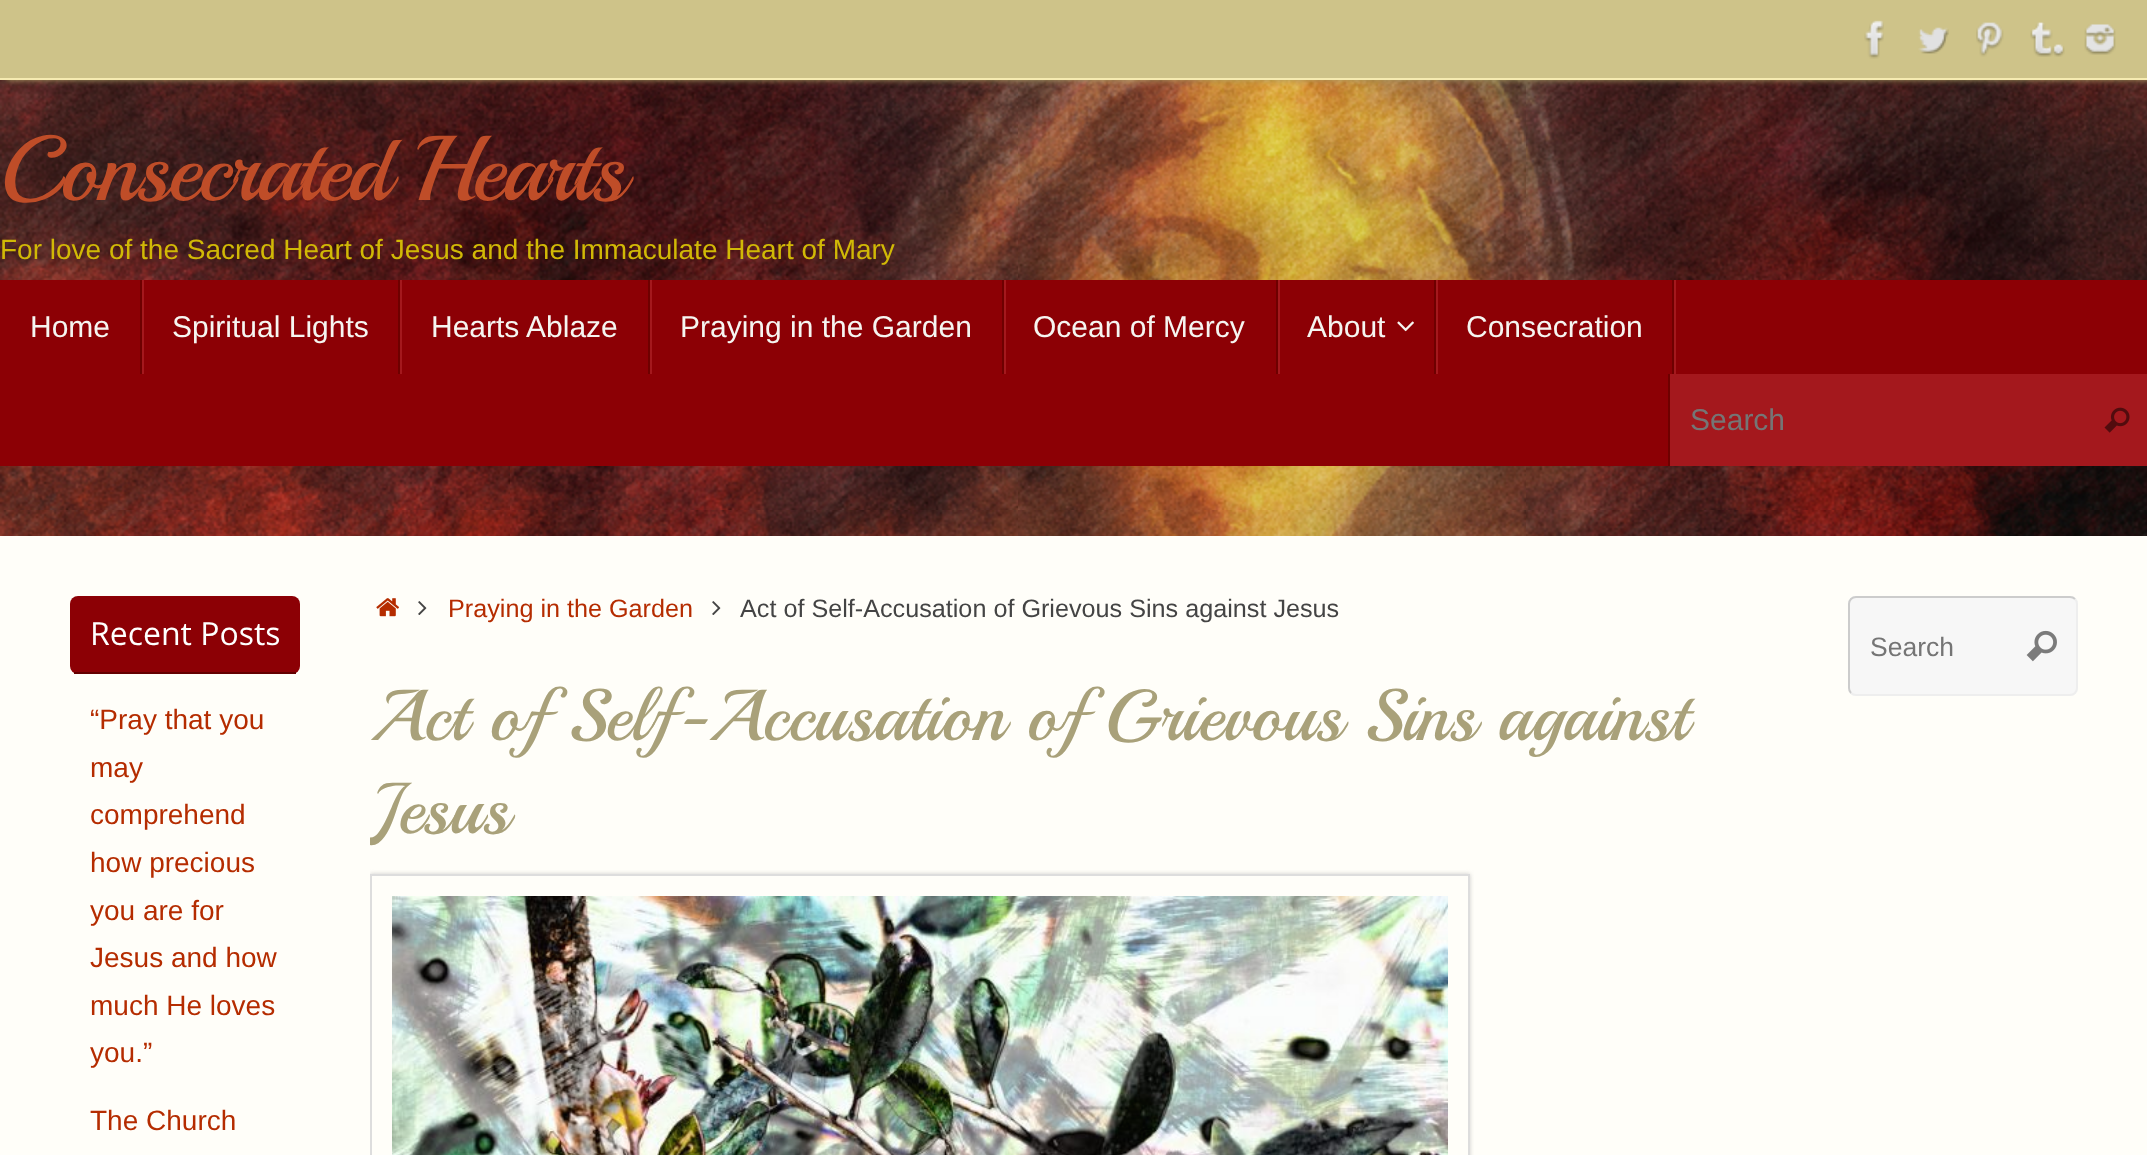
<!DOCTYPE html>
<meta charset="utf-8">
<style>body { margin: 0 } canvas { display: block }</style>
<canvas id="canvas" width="2147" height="1155"></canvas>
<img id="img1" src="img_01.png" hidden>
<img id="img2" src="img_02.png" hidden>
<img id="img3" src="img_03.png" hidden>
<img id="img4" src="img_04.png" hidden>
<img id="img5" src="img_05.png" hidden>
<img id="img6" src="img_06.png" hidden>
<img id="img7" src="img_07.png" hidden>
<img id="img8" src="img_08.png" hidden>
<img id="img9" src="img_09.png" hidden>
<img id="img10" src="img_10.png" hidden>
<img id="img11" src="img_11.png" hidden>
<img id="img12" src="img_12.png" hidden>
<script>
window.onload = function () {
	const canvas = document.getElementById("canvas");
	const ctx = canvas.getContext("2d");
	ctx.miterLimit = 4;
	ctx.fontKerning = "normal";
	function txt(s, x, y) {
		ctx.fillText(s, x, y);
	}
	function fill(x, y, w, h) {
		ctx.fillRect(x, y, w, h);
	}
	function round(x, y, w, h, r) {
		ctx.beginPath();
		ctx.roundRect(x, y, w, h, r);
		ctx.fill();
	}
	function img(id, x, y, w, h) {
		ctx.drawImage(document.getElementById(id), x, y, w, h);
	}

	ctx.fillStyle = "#FFFFFF";
	fill(0, 0, 2147, 1155);
	img("img1", 0, 80, 2147, 456);
	ctx.fillStyle = "#A69B61";
	ctx.filter = "blur(3px)";
	ctx.beginPath();
	ctx.rect(6, 0, 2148, 80);
	ctx.fill();
	ctx.filter = "none";
	ctx.fillStyle = "#CEC389";
	fill(0, 0, 2147, 78);
	ctx.fillStyle = "#F6EBB1";
	fill(0, 78, 2147, 2);
	img("img2", 1864, 20, 20, 39);
	img("img3", 1918, 27, 31, 27);
	img("img4", 1976, 22, 28, 35);
	img("img5", 2030, 22, 35, 35);
	img("img6", 2084, 24, 32, 31);
	ctx.fillStyle = "#8C0005";
	fill(0, 280, 2147, 186);
	ctx.fillStyle = "#A4181D";
	fill(142, 280, 2, 94);
	ctx.fillStyle = "#6E0000";
	fill(140, 280, 2, 94);
	ctx.fillStyle = "#A4181D";
	fill(400, 280, 2, 94);
	ctx.fillStyle = "#6E0000";
	fill(398, 280, 2, 94);
	ctx.fillStyle = "#A4181D";
	fill(650, 280, 2, 94);
	ctx.fillStyle = "#6E0000";
	fill(648, 280, 2, 94);
	ctx.fillStyle = "#A4181D";
	fill(1004, 280, 2, 94);
	ctx.fillStyle = "#6E0000";
	fill(1002, 280, 2, 94);
	ctx.fillStyle = "#A4181D";
	fill(1278, 280, 2, 94);
	ctx.fillStyle = "#6E0000";
	fill(1276, 280, 2, 94);
	ctx.fillStyle = "#A4181D";
	fill(1436, 280, 2, 94);
	ctx.fillStyle = "#6E0000";
	fill(1434, 280, 2, 94);
	img("img7", 1397, 321, 17, 11);
	ctx.fillStyle = "#A4181D";
	fill(1674, 280, 2, 94);
	ctx.fillStyle = "#6E0000";
	fill(1672, 280, 2, 94);
	ctx.fillStyle = "#A4181D";
	fill(1670, 374, 477, 92);
	ctx.fillStyle = "#6E0000";
	fill(1668, 374, 2, 92);
	img("img8", 2104, 407, 26, 26);
	ctx.fillStyle = "#FFFEF9";
	fill(0, 536, 2147, 619);
	ctx.fillStyle = "#8C0005";
	round(70, 596, 230, 78, 8);
	ctx.fillStyle = "#640000";
	fill(74, 672, 222, 2);
	img("img9", 376, 598, 23, 19);
	img("img10", 418, 601, 9, 14);
	img("img10", 712, 601, 9, 14);
	ctx.save();
	ctx.beginPath();
	ctx.rect(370, 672, 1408, 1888);
	ctx.clip();
	ctx.beginPath();
	ctx.moveTo(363, 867);
	ctx.lineTo(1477, 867);
	ctx.lineTo(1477, 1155);
	ctx.lineTo(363, 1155);
	ctx.closePath();
	ctx.moveTo(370, 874);
	ctx.lineTo(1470, 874);
	ctx.lineTo(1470, 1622);
	ctx.lineTo(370, 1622);
	ctx.closePath();
	ctx.clip("evenodd");
	ctx.fillStyle = "#CDCDCC";
	ctx.filter = "blur(2px)";
	ctx.beginPath();
	ctx.rect(370, 874, 1100, 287);
	ctx.fill();
	ctx.filter = "none";
	ctx.restore();
	ctx.strokeStyle = "#DDDDDD";
	ctx.lineWidth = 2;
	ctx.strokeRect(371, 875, 1098, 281);
	img("img11", 392, 896, 1056, 259);
	ctx.fillStyle = "#F7F7F7";
	round(1848, 596, 230, 100, 8);
	ctx.beginPath();
	ctx.moveTo(2075, 599);
	ctx.bezierCurveTo(2076.5, 600.5, 2077, 602, 2077, 604);
	ctx.lineTo(2077, 688);
	ctx.bezierCurveTo(2077, 690, 2076.5, 691.5, 2075, 693);
	ctx.bezierCurveTo(2073.5, 694.5, 2072, 695, 2070, 695);
	ctx.lineTo(1856, 695);
	ctx.bezierCurveTo(1854, 695, 1852.5, 694.5, 1851, 693);
	ctx.strokeStyle = "#EEEEEE";
	ctx.stroke();
	ctx.beginPath();
	ctx.moveTo(1851, 693);
	ctx.bezierCurveTo(1849.5, 691.5, 1849, 690, 1849, 688);
	ctx.lineTo(1849, 604);
	ctx.bezierCurveTo(1849, 602, 1849.5, 600.5, 1851, 599);
	ctx.bezierCurveTo(1852.5, 597.5, 1854, 597, 1856, 597);
	ctx.lineTo(2070, 597);
	ctx.bezierCurveTo(2072, 597, 2073.5, 597.5, 2075, 599);
	ctx.strokeStyle = "#CCCCCC";
	ctx.stroke();
	img("img12", 2026, 630, 31, 32);
	ctx.letterSpacing = "-2.75px";
	ctx.font = "92px Playball";
	ctx.fillStyle = "#BF4D28";
	txt("Consecrated Hearts", 0, 200);
	ctx.letterSpacing = "0px";
	ctx.font = "28px Liberation Sans";
	ctx.fillStyle = "#D1B906";
	txt("For love of the Sacred Heart of Jesus and the Immaculate Heart of Mary", 0, 259);
	ctx.font = "30px Liberation Sans";
	ctx.fillStyle = "#F6F5F1";
	txt("Home", 30, 337);
	txt("Spiritual Lights", 172, 337);
	txt("Hearts Ablaze", 431, 337);
	txt("Praying in the Garden", 680, 337);
	txt("Ocean of Mercy", 1033, 337);
	txt("About", 1307, 337);
	txt("Consecration", 1466, 337);
	ctx.fillStyle = "#757575";
	txt("Search", 1690, 430);
	ctx.font = "32px Open Sans";
	ctx.fillStyle = "#FFFFFF";
	txt("Recent Posts", 90, 645);
	ctx.font = "28px Liberation Sans";
	ctx.fillStyle = "#B52C00";
	txt("“Pray that you", 90, 729);
	txt("may", 90, 777);
	txt("comprehend", 90, 824);
	txt("how precious", 90, 872);
	txt("you are for", 90, 920);
	txt("Jesus and how", 90, 967);
	txt("much He loves", 90, 1015);
	txt("you.”", 90, 1062);
	txt("The Church", 90, 1130);
	ctx.font = "25.2px Liberation Sans";
	txt("Praying in the Garden", 448, 617);
	ctx.fillStyle = "#444444";
	txt("Act of Self-Accusation of Grievous Sins against Jesus", 740, 617);
	ctx.font = "72px Playball";
	ctx.fillStyle = "#A9A17A";
	txt("Act of Self-Accusation of Grievous Sins against", 370, 740);
	ctx.save();
	ctx.beginPath();
	ctx.rect(370, 672, 1408, 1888);
	ctx.clip();
	txt("Jesus", 370, 833);
	ctx.restore();
	ctx.font = "26.5px Liberation Sans";
	ctx.fillStyle = "#757575";
	txt("Search", 1870, 656);
};
</script>
